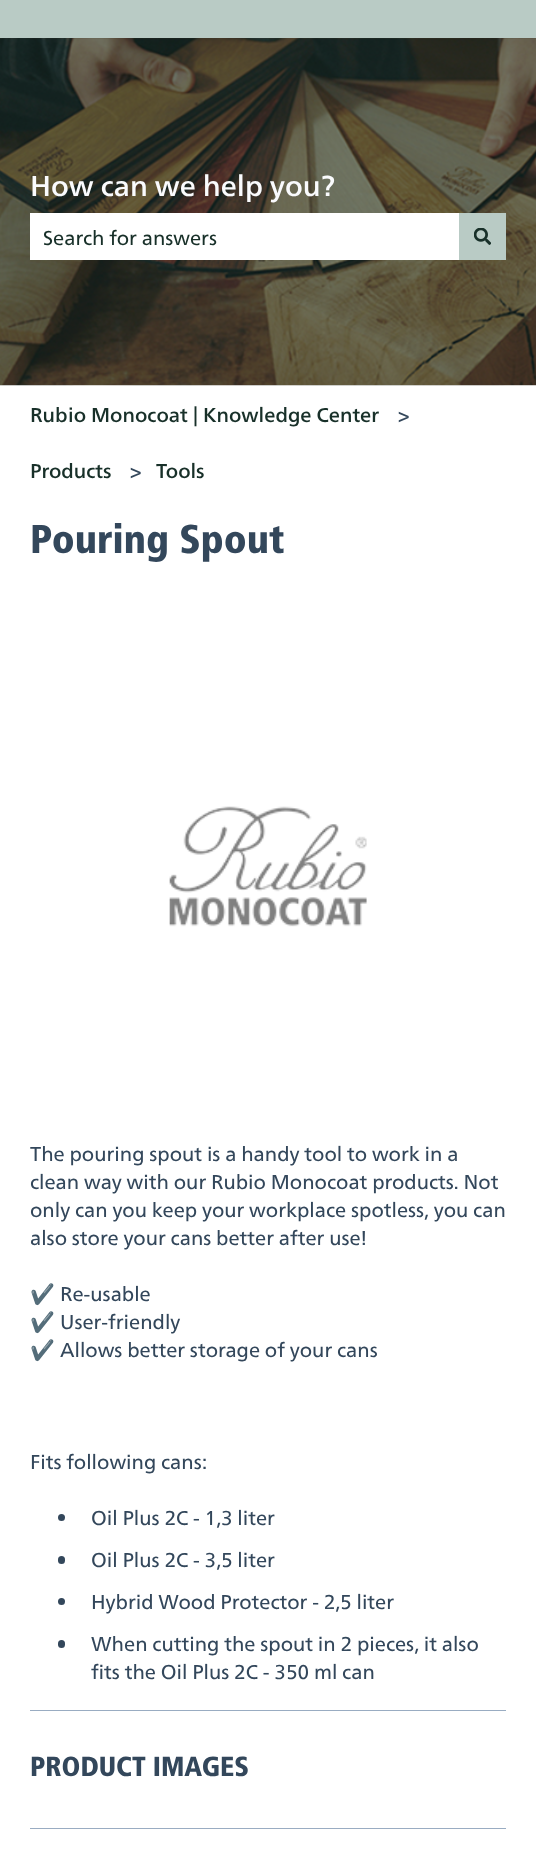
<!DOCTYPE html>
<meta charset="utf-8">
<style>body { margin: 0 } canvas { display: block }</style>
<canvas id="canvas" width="536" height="1862"></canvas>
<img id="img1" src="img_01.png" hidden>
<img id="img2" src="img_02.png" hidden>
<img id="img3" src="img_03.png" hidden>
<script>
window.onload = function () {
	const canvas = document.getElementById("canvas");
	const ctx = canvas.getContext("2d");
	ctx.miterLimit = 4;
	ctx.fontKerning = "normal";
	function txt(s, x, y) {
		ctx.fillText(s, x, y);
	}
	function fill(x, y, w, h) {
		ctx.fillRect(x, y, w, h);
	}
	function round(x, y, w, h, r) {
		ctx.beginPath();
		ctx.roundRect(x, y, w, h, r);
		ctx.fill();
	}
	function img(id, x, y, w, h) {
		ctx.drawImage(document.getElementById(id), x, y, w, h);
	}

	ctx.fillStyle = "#FFFFFF";
	fill(0, 0, 536, 1862);
	ctx.fillStyle = "#B9CBC5";
	fill(0, 0, 536, 38);
	img("img1", 0, 38, 536, 348);
	ctx.fillStyle = "#FFFFFF";
	fill(30, 213, 429, 47);
	ctx.fillStyle = "#B9CBC5";
	fill(459, 213, 47, 47);
	img("img2", 474, 228, 17, 17);
	img("img3", 169, 806, 198, 121);
	ctx.fillStyle = "#33475B";
	ctx.beginPath();
	ctx.arc(61.5, 1517.5, 3.5, 0, Math.PI * 2);
	ctx.fill();
	round(58, 1556, 7, 8, 3.5);
	ctx.beginPath();
	ctx.arc(61.5, 1601.5, 3.5, 0, Math.PI * 2);
	ctx.fill();
	round(58, 1640, 7, 8, 3.5);
	ctx.fillStyle = "#99ACC2";
	fill(30, 1710, 476, 1);
	fill(30, 1828, 476, 1);
	ctx.font = "500 28.75px 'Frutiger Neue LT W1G'";
	ctx.fillStyle = "#FAFBFD";
	txt("How can we help you?", 30, 196);
	ctx.font = "20px 'Frutiger Neue LT W1G'";
	ctx.fillStyle = "#183029";
	txt("Search for answers", 43, 245);
	ctx.font = "500 20px 'Frutiger Neue LT W1G'";
	txt("Rubio Monocoat | Knowledge Center", 30, 422);
	ctx.font = "20px 'Frutiger Neue LT W1G'";
	ctx.fillStyle = "#33475B";
	txt(">", 398, 422);
	ctx.font = "500 20px 'Frutiger Neue LT W1G'";
	ctx.fillStyle = "#183029";
	txt("Products", 30, 478);
	ctx.font = "20px 'Frutiger Neue LT W1G'";
	ctx.fillStyle = "#33475B";
	txt(">", 130, 478);
	ctx.font = "500 20px 'Frutiger Neue LT W1G'";
	ctx.fillStyle = "#183029";
	txt("Tools", 156, 478);
	ctx.font = "900 40px Frutiger";
	ctx.fillStyle = "#33475B";
	txt("Pouring Spout", 30, 553);
	ctx.font = "20px 'Frutiger Neue LT W1G'";
	txt("The pouring spout is a handy tool to work in a", 30, 1161);
	txt("clean way with our Rubio Monocoat products. Not", 30, 1189);
	txt("only can you keep your workplace spotless, you can", 30, 1217);
	txt("also store your cans better after use!", 30, 1245);
	ctx.font = "20px Noto Color Emoji";
	txt("✔️", 30, 1301);
	ctx.font = "20px 'Frutiger Neue LT W1G'";
	txt("Re-usable", 60, 1301);
	ctx.font = "20px Noto Color Emoji";
	txt("✔️", 30, 1329);
	ctx.font = "20px 'Frutiger Neue LT W1G'";
	txt("User-friendly", 60, 1329);
	ctx.font = "20px Noto Color Emoji";
	txt("✔️", 30, 1357);
	ctx.font = "20px 'Frutiger Neue LT W1G'";
	txt("Allows better storage of your cans", 60, 1357);
	txt("Fits following cans:", 30, 1469);
	txt("Oil Plus 2C - 1,3 liter", 91, 1525);
	txt("Oil Plus 2C - 3,5 liter", 91, 1567);
	txt("Hybrid Wood Protector - 2,5 liter", 91, 1609);
	txt("When cutting the spout in 2 pieces, it also", 91, 1651);
	txt("fits the Oil Plus 2C - 350 ml can", 91, 1679);
	ctx.font = "900 27.5px Frutiger";
	txt("PRODUCT IMAGES", 30, 1776);
};
</script>
